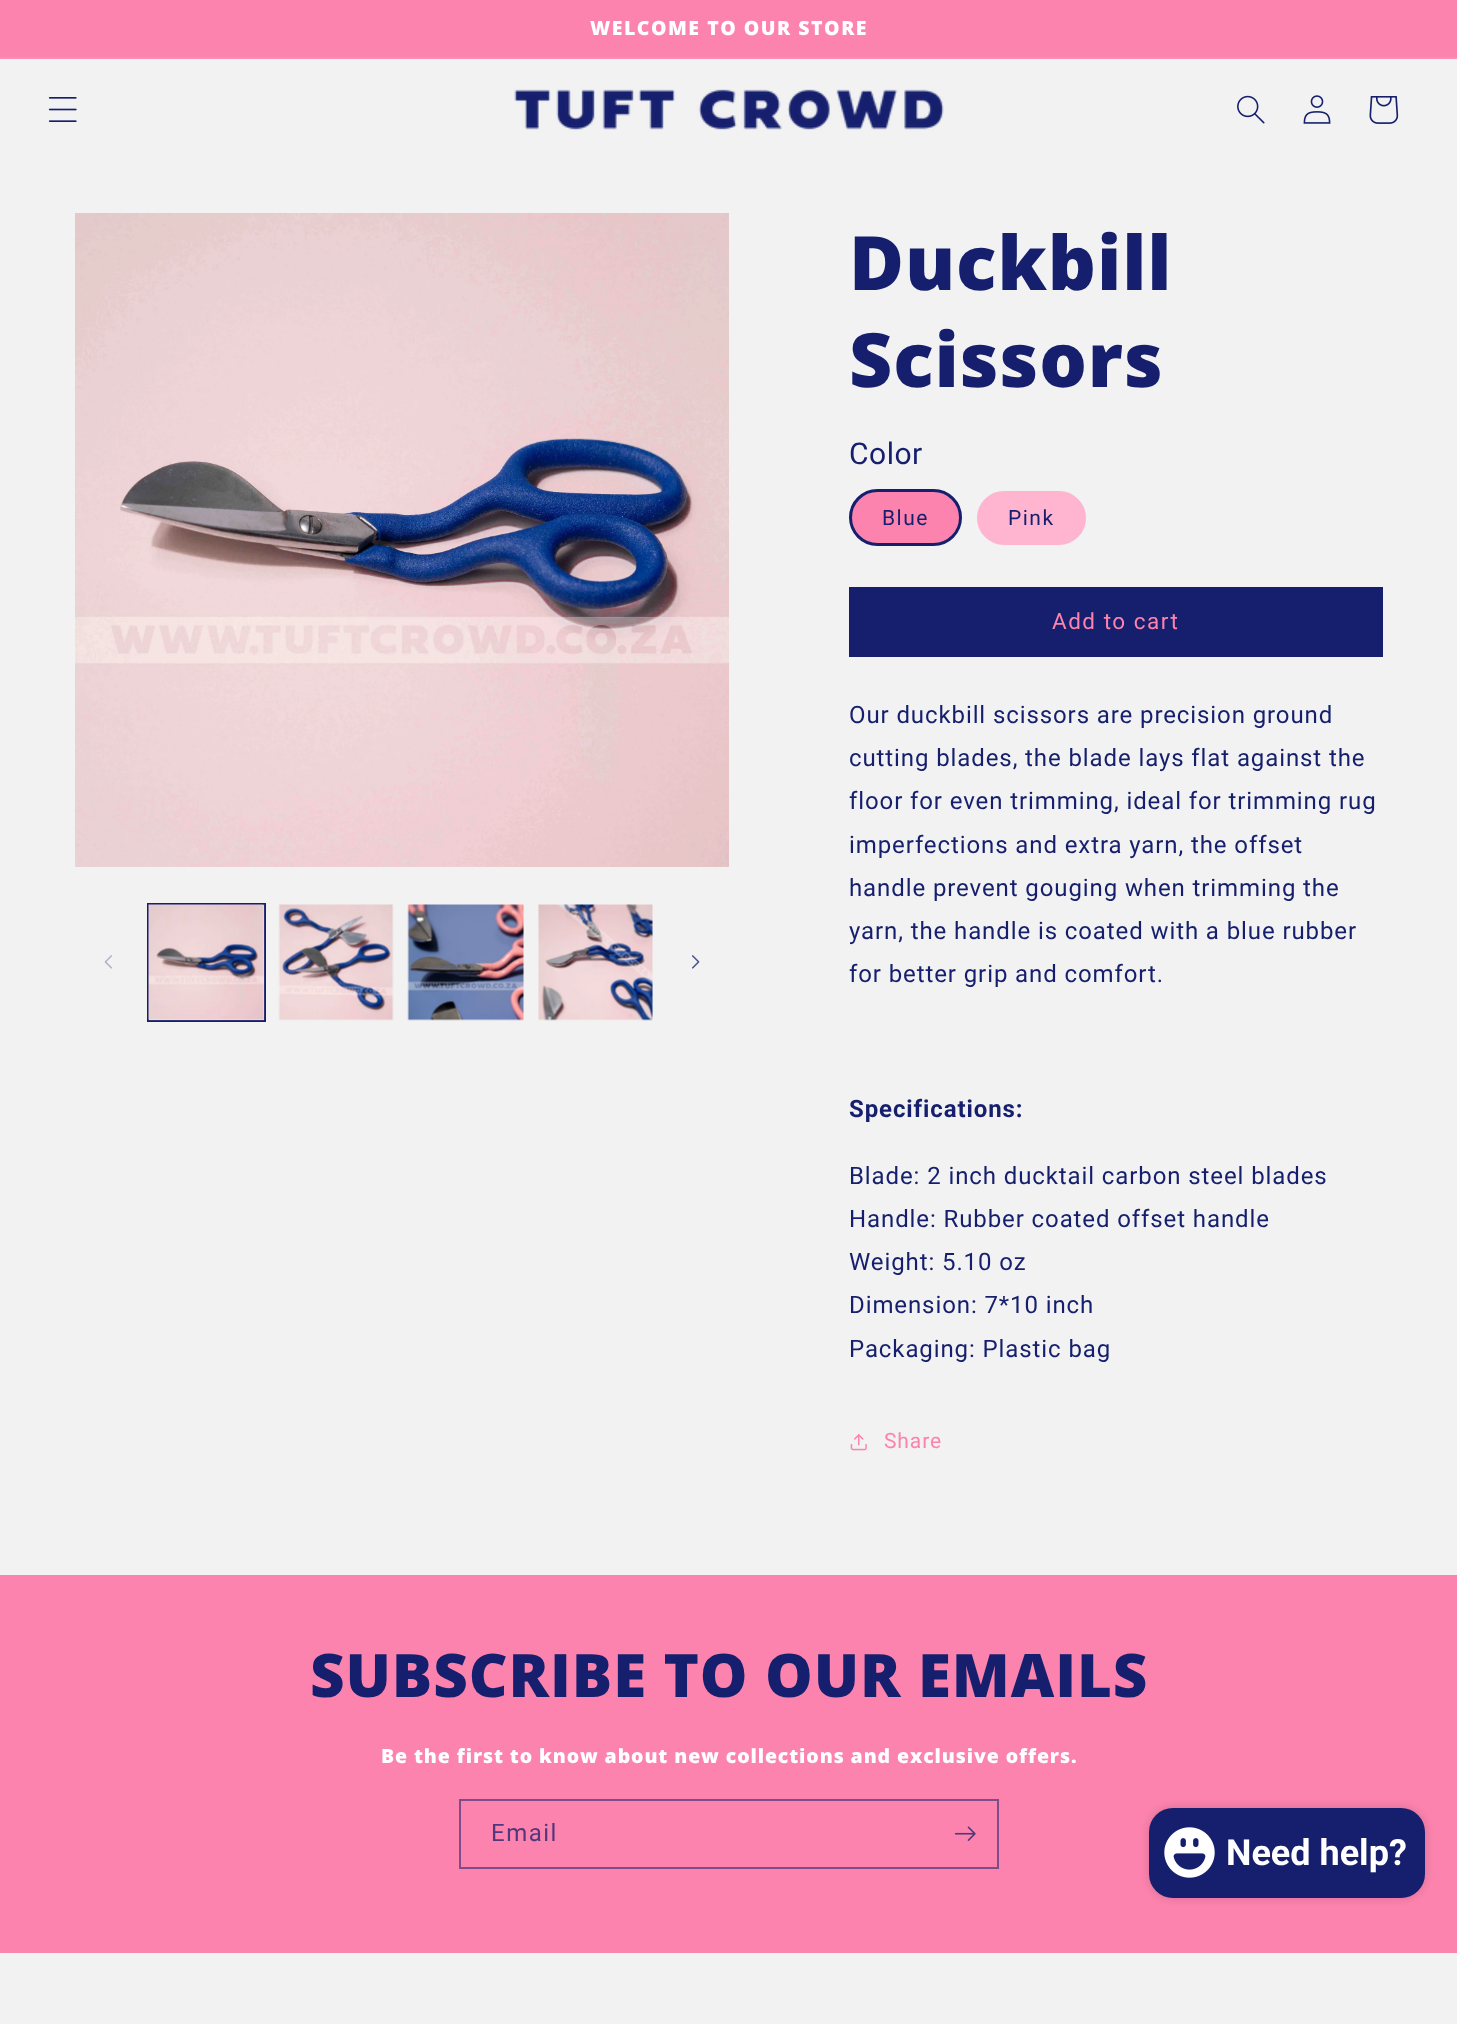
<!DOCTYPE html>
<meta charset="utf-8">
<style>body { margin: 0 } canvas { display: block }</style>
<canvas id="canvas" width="1457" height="2024"></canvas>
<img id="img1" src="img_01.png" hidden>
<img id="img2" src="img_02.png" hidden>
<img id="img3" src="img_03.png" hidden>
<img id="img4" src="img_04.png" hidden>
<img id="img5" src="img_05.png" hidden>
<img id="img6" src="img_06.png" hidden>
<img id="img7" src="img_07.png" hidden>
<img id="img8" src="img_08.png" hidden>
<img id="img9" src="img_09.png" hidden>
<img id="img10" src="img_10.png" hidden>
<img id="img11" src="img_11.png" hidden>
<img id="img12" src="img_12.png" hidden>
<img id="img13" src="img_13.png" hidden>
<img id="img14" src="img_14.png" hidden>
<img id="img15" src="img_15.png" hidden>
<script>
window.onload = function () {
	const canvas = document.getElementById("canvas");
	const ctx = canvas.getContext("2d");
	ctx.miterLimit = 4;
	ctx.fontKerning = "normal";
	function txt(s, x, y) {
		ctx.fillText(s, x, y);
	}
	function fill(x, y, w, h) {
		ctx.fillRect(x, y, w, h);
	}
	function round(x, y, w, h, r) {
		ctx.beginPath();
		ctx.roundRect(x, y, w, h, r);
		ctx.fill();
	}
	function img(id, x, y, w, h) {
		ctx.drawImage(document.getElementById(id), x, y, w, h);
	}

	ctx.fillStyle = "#F2F2F2";
	fill(0, 0, 1457, 2024);
	ctx.fillStyle = "#FB83AD";
	fill(0, 0, 1457, 57);
	ctx.fillStyle = "#FB8DB4";
	fill(0, 57, 1457, 2);
	img("img1", 48, 97, 29, 25);
	img("img2", 514, 89, 430, 41);
	img("img3", 1237, 95, 28, 29);
	img("img4", 1303, 95, 28, 29);
	img("img5", 1369, 96, 30, 28);
	img("img6", 75, 213, 654, 654);
	img("img7", 104, 955, 8, 14);
	ctx.strokeStyle = "#151F6D";
	ctx.lineWidth = 2;
	ctx.strokeRect(148, 904, 117, 117);
	img("img8", 148, 904, 117, 117);
	img("img9", 278, 904, 116, 117);
	img("img10", 407, 904, 117, 117);
	img("img11", 538, 904, 115, 117);
	img("img12", 692, 955, 8, 14);
	ctx.fillStyle = "#FB83AD";
	ctx.beginPath();
	ctx.roundRect(850.5, 490.5, 110, 54, 27);
	ctx.fill();
	ctx.lineWidth = 3;
	ctx.stroke();
	ctx.fillStyle = "#FFB4CF";
	ctx.beginPath();
	ctx.roundRect(978, 492, 107, 52, 26);
	ctx.fill();
	ctx.strokeStyle = "#FFB4CF";
	ctx.lineWidth = 2;
	ctx.stroke();
	ctx.fillStyle = "#151F6D";
	fill(849, 587, 534, 70);
	img("img13", 850, 1434, 17, 17);
	ctx.fillStyle = "#FB83AD";
	fill(0, 1575, 1457, 378);
	ctx.strokeStyle = "#7D4C8A";
	ctx.strokeRect(460, 1800, 538, 68);
	img("img14", 954, 1826, 22, 15);
	ctx.fillStyle = "rgba(0, 0, 0, 0.15)";
	ctx.filter = "blur(4px)";
	ctx.beginPath();
	ctx.roundRect(1149, 1808, 276, 90, 24);
	ctx.fill();
	ctx.filter = "none";
	ctx.fillStyle = "#151F6D";
	round(1149, 1808, 276, 90, 24);
	img("img15", 1164, 1827, 51, 51);
	ctx.letterSpacing = "1.5px";
	ctx.font = "800 19.5px Open Sans";
	ctx.fillStyle = "#FFFFFF";
	txt("WELCOME TO OUR STORE", 590, 35);
	ctx.letterSpacing = "0.9px";
	ctx.font = "800 75px Open Sans";
	ctx.fillStyle = "#151F6D";
	txt("Duckbill", 849, 290);
	txt("Scissors", 849, 387);
	ctx.letterSpacing = "0.5px";
	ctx.font = "30px Roboto";
	txt("Color", 849, 464);
	ctx.letterSpacing = "1.5px";
	ctx.font = "21px Roboto";
	txt("Blue", 882, 525);
	txt("Pink", 1008, 525);
	ctx.font = "22.5px Roboto";
	ctx.fillStyle = "#FB83AD";
	txt("Add to cart", 1052, 629);
	ctx.letterSpacing = "0.9px";
	ctx.font = "24px Roboto";
	ctx.fillStyle = "#151F6D";
	txt("Our duckbill scissors are precision ground", 849, 723);
	txt("cutting blades, the blade lays flat against the", 849, 766);
	txt("floor for even trimming, ideal for trimming rug", 849, 809);
	txt("imperfections and extra yarn, the offset", 849, 853);
	txt("handle prevent gouging when trimming the", 849, 896);
	txt("yarn, the handle is coated with a blue rubber", 849, 939);
	txt("for better grip and comfort.", 849, 982);
	ctx.font = "bold 24px Roboto";
	txt("Specifications:", 849, 1117);
	ctx.font = "24px Roboto";
	txt("Blade: 2 inch ducktail carbon steel blades", 849, 1184);
	txt("Handle: Rubber coated offset handle", 849, 1227);
	txt("Weight: 5.10 oz", 849, 1270);
	txt("Dimension: 7*10 inch", 849, 1313);
	txt("Packaging: Plastic bag", 849, 1357);
	ctx.font = "21px Roboto";
	ctx.fillStyle = "#FB83AD";
	txt("Share", 884, 1448);
	ctx.font = "800 60px Open Sans";
	ctx.fillStyle = "#151F6D";
	txt("SUBSCRIBE TO OUR EMAILS", 310, 1697);
	ctx.font = "800 19.5px Open Sans";
	ctx.fillStyle = "#FFFFFF";
	txt("Be the first to know about new collections and exclusive offers.", 381, 1763);
	ctx.letterSpacing = "1.5px";
	ctx.font = "24px Roboto";
	ctx.fillStyle = "#4F387D";
	txt("Email", 491, 1841);
	ctx.letterSpacing = "0px";
	ctx.font = "bold 36px Roboto";
	ctx.fillStyle = "#FFFFFF";
	txt("Need help?", 1226, 1865);
};
</script>
